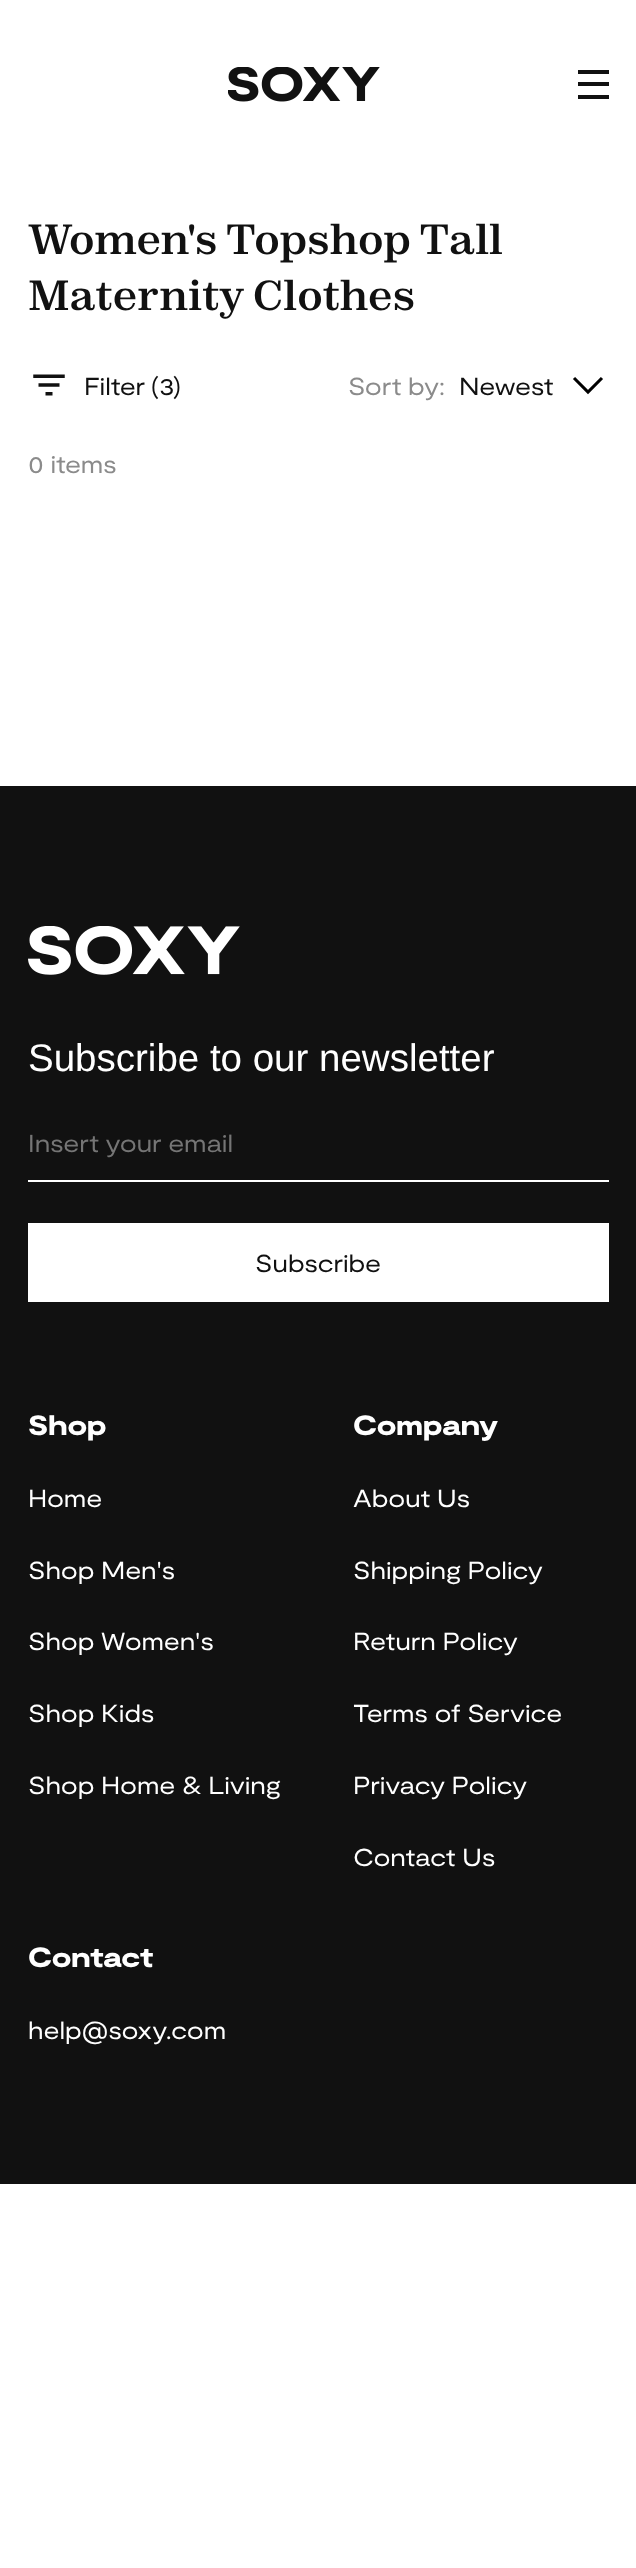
<!DOCTYPE html>
<meta charset="utf-8">
<style>body { margin: 0 } canvas { display: block }</style>
<canvas id="canvas" width="636" height="2568"></canvas>
<img id="img1" src="img_01.png" hidden>
<img id="img2" src="img_02.png" hidden>
<img id="img3" src="img_03.png" hidden>
<script>
window.onload = function () {
	const canvas = document.getElementById("canvas");
	const ctx = canvas.getContext("2d");
	ctx.miterLimit = 4;
	ctx.fontKerning = "normal";
	function txt(s, x, y) {
		ctx.fillText(s, x, y);
	}
	function fill(x, y, w, h) {
		ctx.fillRect(x, y, w, h);
	}
	function img(id, x, y, w, h) {
		ctx.drawImage(document.getElementById(id), x, y, w, h);
	}

	ctx.fillStyle = "#FFFFFF";
	fill(0, 0, 636, 2568);
	img("img1", 228, 67, 152, 35);
	ctx.fillStyle = "#111111";
	fill(578, 82, 31, 4);
	fill(578, 70, 31, 4);
	fill(578, 95, 31, 4);
	img("img2", 33, 374, 32, 22);
	ctx.beginPath();
	ctx.moveTo(602, 378);
	ctx.lineTo(588, 392);
	ctx.lineTo(574, 378);
	ctx.strokeStyle = "#000000";
	ctx.lineWidth = 3.1;
	ctx.stroke();
	fill(0, 786, 636, 1398);
	img("img3", 28, 926, 212, 49);
	ctx.fillStyle = "#FFFFFF";
	fill(28, 1180, 581, 2);
	fill(28, 1223, 581, 79);
	ctx.font = "bold 42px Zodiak";
	ctx.fillStyle = "#111111";
	txt("Women's Topshop Tall", 28, 254);
	txt("Maternity Clothes", 28, 310);
	ctx.wordSpacing = "-1px";
	ctx.font = "24.5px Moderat";
	txt("Filter (", 84, 395);
	ctx.wordSpacing = "0px";
	txt("3", 159, 395);
	txt(")", 173, 395);
	ctx.fillStyle = "#8B8B8B";
	txt("Sort by:", 348, 395);
	ctx.fillStyle = "#111111";
	txt("Newest", 459, 395);
	ctx.fillStyle = "#8B8B8B";
	txt("0 items", 28, 473);
	ctx.font = "38.5px Liberation Sans";
	ctx.fillStyle = "#FFFFFF";
	txt("Subscribe to our newsletter", 28, 1071);
	ctx.font = "24.5px Moderat";
	ctx.fillStyle = "#757575";
	txt("Insert your email", 28, 1152);
	ctx.fillStyle = "#111111";
	txt("Subscribe", 255, 1272);
	ctx.font = "900 28px Moderat";
	ctx.fillStyle = "#FFFFFF";
	txt("Shop", 28, 1435);
	ctx.font = "24.5px Moderat";
	txt("Home", 28, 1507);
	txt("Shop Men's", 28, 1579);
	txt("Shop Women's", 28, 1650);
	txt("Shop Kids", 28, 1722);
	txt("Shop Home & Living", 28, 1794);
	ctx.font = "900 28px Moderat";
	txt("Company", 353, 1435);
	ctx.font = "24.5px Moderat";
	txt("About Us", 353, 1507);
	txt("Shipping Policy", 353, 1579);
	txt("Return Policy", 353, 1650);
	txt("Terms of Service", 353, 1722);
	txt("Privacy Policy", 353, 1794);
	txt("Contact Us", 353, 1866);
	ctx.font = "900 28px Moderat";
	txt("Contact", 28, 1967);
	ctx.font = "24.5px Moderat";
	txt("help@soxy.com", 28, 2039);
};
</script>
